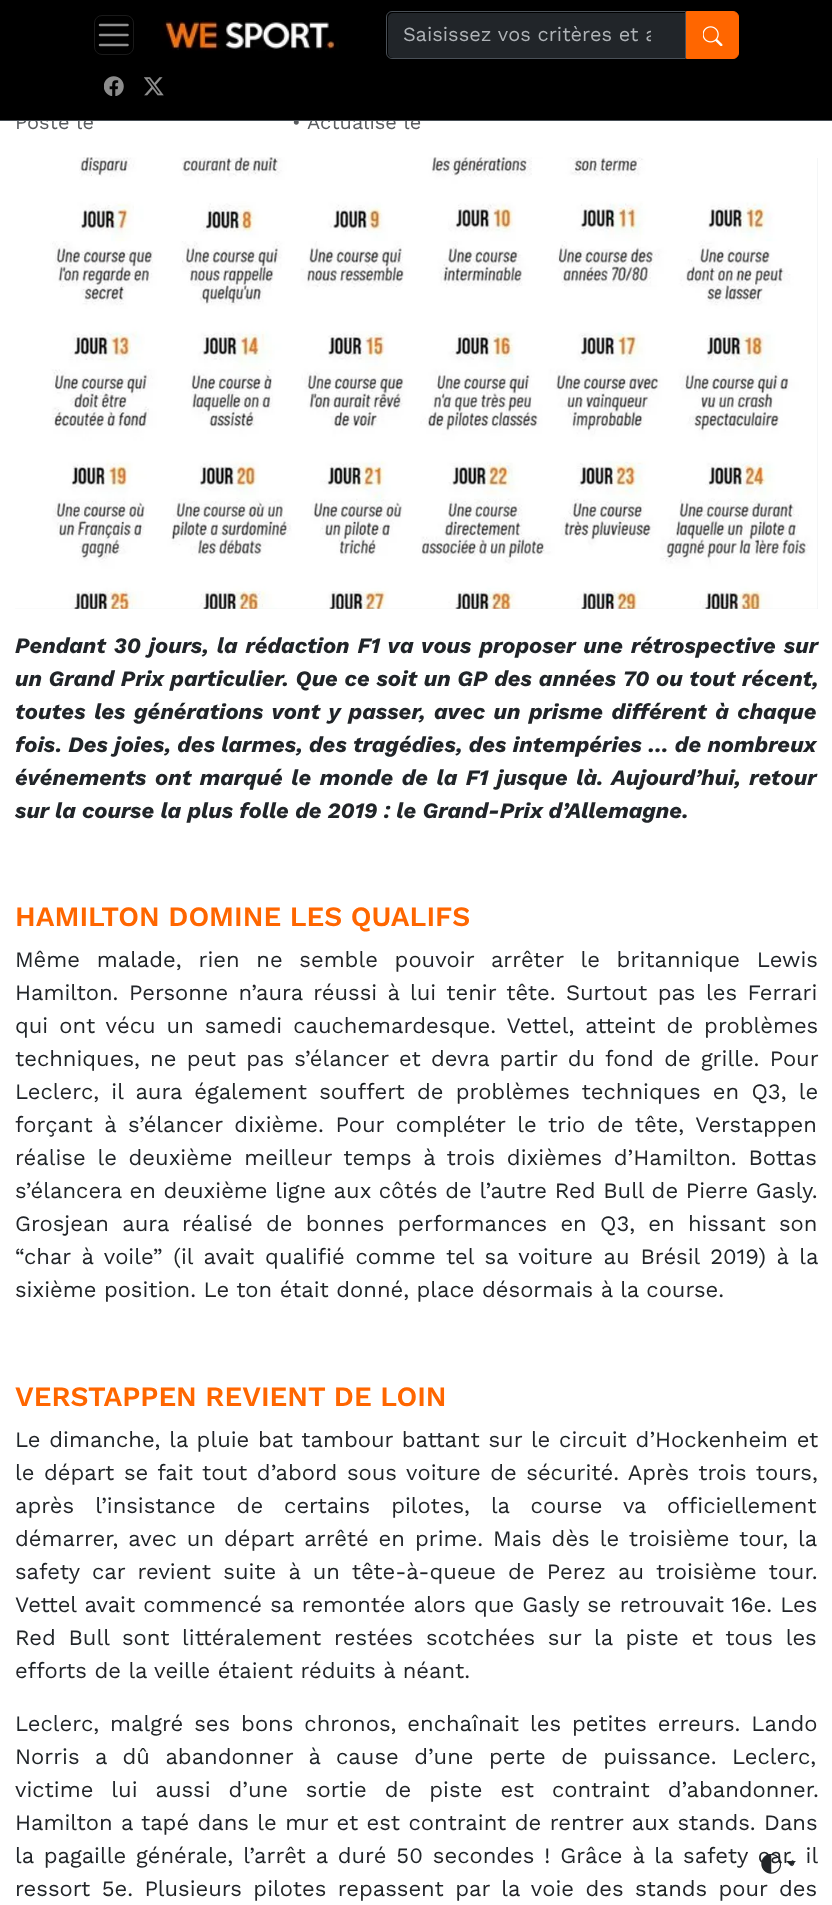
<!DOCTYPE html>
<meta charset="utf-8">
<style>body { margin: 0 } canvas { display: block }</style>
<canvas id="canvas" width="832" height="1905"></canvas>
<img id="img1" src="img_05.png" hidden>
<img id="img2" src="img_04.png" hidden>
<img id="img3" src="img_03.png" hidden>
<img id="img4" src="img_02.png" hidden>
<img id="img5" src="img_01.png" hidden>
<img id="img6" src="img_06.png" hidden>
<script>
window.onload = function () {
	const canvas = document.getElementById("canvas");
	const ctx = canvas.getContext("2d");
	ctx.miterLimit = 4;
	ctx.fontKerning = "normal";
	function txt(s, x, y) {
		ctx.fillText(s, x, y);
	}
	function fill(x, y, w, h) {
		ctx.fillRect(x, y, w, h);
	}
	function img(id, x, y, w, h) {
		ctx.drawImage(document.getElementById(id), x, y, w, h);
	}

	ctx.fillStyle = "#FFFFFF";
	fill(0, 0, 832, 1905);
	ctx.fillStyle = "#E9ECEF";
	fill(15, 158, 803, 451);
	img("img1", 15, 157, 803, 452);
	ctx.fillStyle = "#212529";
	ctx.beginPath();
	ctx.moveTo(786, 1861);
	ctx.lineTo(796, 1861);
	ctx.lineTo(791, 1866);
	ctx.closePath();
	ctx.fill();
	ctx.font = "20px Work Sans";
	ctx.fillStyle = "#595C5F";
	txt("Posté le", 15, 129);
	txt("•", 292, 129);
	txt("Actualisé le", 307, 129);
	ctx.fillStyle = "#000000";
	fill(0, 0, 832, 120);
	img("img2", 144, 77, 20, 19);
	img("img3", 104, 76, 20, 20);
	ctx.fillStyle = "#FF6600";
	ctx.beginPath();
	ctx.roundRect(686.5, 11.5, 52, 47, [0, 5.5, 5.5, 0]);
	ctx.fill();
	ctx.strokeStyle = "#FF6600";
	ctx.stroke();
	img("img4", 703, 26, 20, 20);
	ctx.fillStyle = "#212529";
	ctx.beginPath();
	ctx.roundRect(388, 13, 297, 45, [5, 0, 0, 5]);
	ctx.fill();
	ctx.beginPath();
	ctx.roundRect(386.5, 11.5, 299, 47, [5.5, 0, 0, 5.5]);
	ctx.strokeStyle = "#495057";
	ctx.stroke();
	ctx.save();
	ctx.beginPath();
	ctx.rect(403, 23, 248, 23);
	ctx.clip();
	ctx.fillStyle = "#AFB3B7";
	txt("Saisissez vos critères et a", 403, 41);
	ctx.restore();
	img("img5", 160, 20, 179, 31);
	ctx.beginPath();
	ctx.roundRect(94.5, 15.5, 39, 39, 7.5);
	ctx.strokeStyle = "#1A1A1A";
	ctx.stroke();
	ctx.beginPath();
	ctx.moveTo(100, 25);
	ctx.lineTo(127.5, 25);
	ctx.moveTo(100, 35);
	ctx.lineTo(127.5, 35);
	ctx.moveTo(100, 45);
	ctx.lineTo(127.5, 45);
	ctx.strokeStyle = "#8C8C8C";
	ctx.lineWidth = 2.5;
	ctx.lineCap = "round";
	ctx.stroke();
	ctx.fillStyle = "#495057";
	fill(0, 120, 832, 1);
	ctx.wordSpacing = "1.75px";
	ctx.font = "italic bold 22px Work Sans";
	ctx.fillStyle = "#212529";
	txt("Pendant 30 jours, la rédaction F1 va vous proposer une rétrospective sur", 15, 653);
	ctx.wordSpacing = "0.5px";
	txt("un Grand Prix particulier. Que ce soit un GP des années 70 ou tout récent,", 15, 686);
	ctx.wordSpacing = "2.25px";
	txt("toutes les générations vont y passer, avec un prisme différent à chaque", 15, 719);
	ctx.wordSpacing = "0px";
	txt("fois. Des joies, des larmes, des tragédies, des intempéries … de nombreux", 15, 752);
	ctx.wordSpacing = "2.25px";
	txt("événements ont marqué le monde de la F1 jusque là. Aujourd’hui, retour", 15, 785);
	ctx.wordSpacing = "0px";
	txt("sur la course la plus folle de 2019 : le Grand-Prix d’Allemagne.", 15, 818);
	ctx.font = "600 28px Work Sans";
	ctx.fillStyle = "#FF6600";
	txt("HAMILTON DOMINE LES QUALIFS", 15, 926);
	ctx.wordSpacing = "9.25px";
	ctx.font = "22px Work Sans";
	ctx.fillStyle = "#212529";
	txt("Même malade, rien ne semble pouvoir arrêter le britannique Lewis", 15, 967);
	ctx.wordSpacing = "3px";
	txt("Hamilton. Personne n’aura réussi à lui tenir tête. Surtout pas les Ferrari", 15, 1000);
	ctx.wordSpacing = "3.5px";
	txt("qui ont vécu un samedi cauchemardesque. Vettel, atteint de problèmes", 15, 1033);
	ctx.wordSpacing = "2.75px";
	txt("techniques, ne peut pas s’élancer et devra partir du fond de grille. Pour", 15, 1066);
	ctx.wordSpacing = "4.75px";
	txt("Leclerc, il aura également souffert de problèmes techniques en Q3, le", 15, 1099);
	ctx.wordSpacing = "4.25px";
	txt("forçant à s’élancer dixième. Pour compléter le trio de tête, Verstappen", 15, 1132);
	txt("réalise le deuxième meilleur temps à trois dixièmes d’Hamilton. Bottas", 15, 1165);
	ctx.wordSpacing = "0.25px";
	txt("s’élancera en deuxième ligne aux côtés de l’autre Red Bull de Pierre Gasly.", 15, 1198);
	ctx.wordSpacing = "5.75px";
	txt("Grosjean aura réalisé de bonnes performances en Q3, en hissant son", 15, 1231);
	ctx.wordSpacing = "3.25px";
	txt("“char à voile” (il avait qualifié comme tel sa voiture au Brésil 2019) à la", 15, 1264);
	ctx.wordSpacing = "0px";
	txt("sixième position. Le ton était donné, place désormais à la course.", 15, 1297);
	ctx.font = "600 28px Work Sans";
	ctx.fillStyle = "#FF6600";
	txt("VERSTAPPEN REVIENT DE LOIN", 15, 1406);
	ctx.wordSpacing = "1.25px";
	ctx.font = "22px Work Sans";
	ctx.fillStyle = "#212529";
	txt("Le dimanche, la pluie bat tambour battant sur le circuit d’Hockenheim et", 15, 1447);
	ctx.wordSpacing = "2.1px";
	txt("le départ se fait tout d’abord sous voiture de sécurité. Après trois tours,", 15, 1480);
	ctx.wordSpacing = "13.5px";
	txt("après l’insistance de certains pilotes, la course va officiellement", 15, 1513);
	ctx.wordSpacing = "2.5px";
	txt("démarrer, avec un départ arrêté en prime. Mais dès le troisième tour, la", 15, 1546);
	ctx.wordSpacing = "4.75px";
	txt("safety car revient suite à un tête-à-queue de Perez au troisième tour.", 15, 1579);
	ctx.wordSpacing = "0.6px";
	txt("Vettel avait commencé sa remontée alors que Gasly se retrouvait 16e. Les", 15, 1612);
	ctx.wordSpacing = "5.25px";
	txt("Red Bull sont littéralement restées scotchées sur la piste et tous les", 15, 1645);
	ctx.wordSpacing = "0px";
	txt("efforts de la veille étaient réduits à néant.", 15, 1678);
	ctx.wordSpacing = "3.5px";
	txt("Leclerc, malgré ses bons chronos, enchaînait les petites erreurs. Lando", 15, 1731);
	ctx.wordSpacing = "8px";
	txt("Norris a dû abandonner à cause d’une perte de puissance. Leclerc,", 15, 1764);
	ctx.wordSpacing = "10.5px";
	txt("victime lui aussi d’une sortie de piste est contraint d’abandonner.", 15, 1797);
	ctx.wordSpacing = "0.9px";
	txt("Hamilton a tapé dans le mur et est contraint de rentrer aux stands. Dans", 15, 1830);
	ctx.wordSpacing = "2.5px";
	txt("la pagaille générale, l’arrêt a duré 50 secondes ! Grâce à la safety car, il", 15, 1863);
	ctx.wordSpacing = "3.9px";
	txt("ressort 5e. Plusieurs pilotes repassent par la voie des stands pour des", 15, 1896);
	img("img6", 761, 1854, 20, 20);
};
</script>
